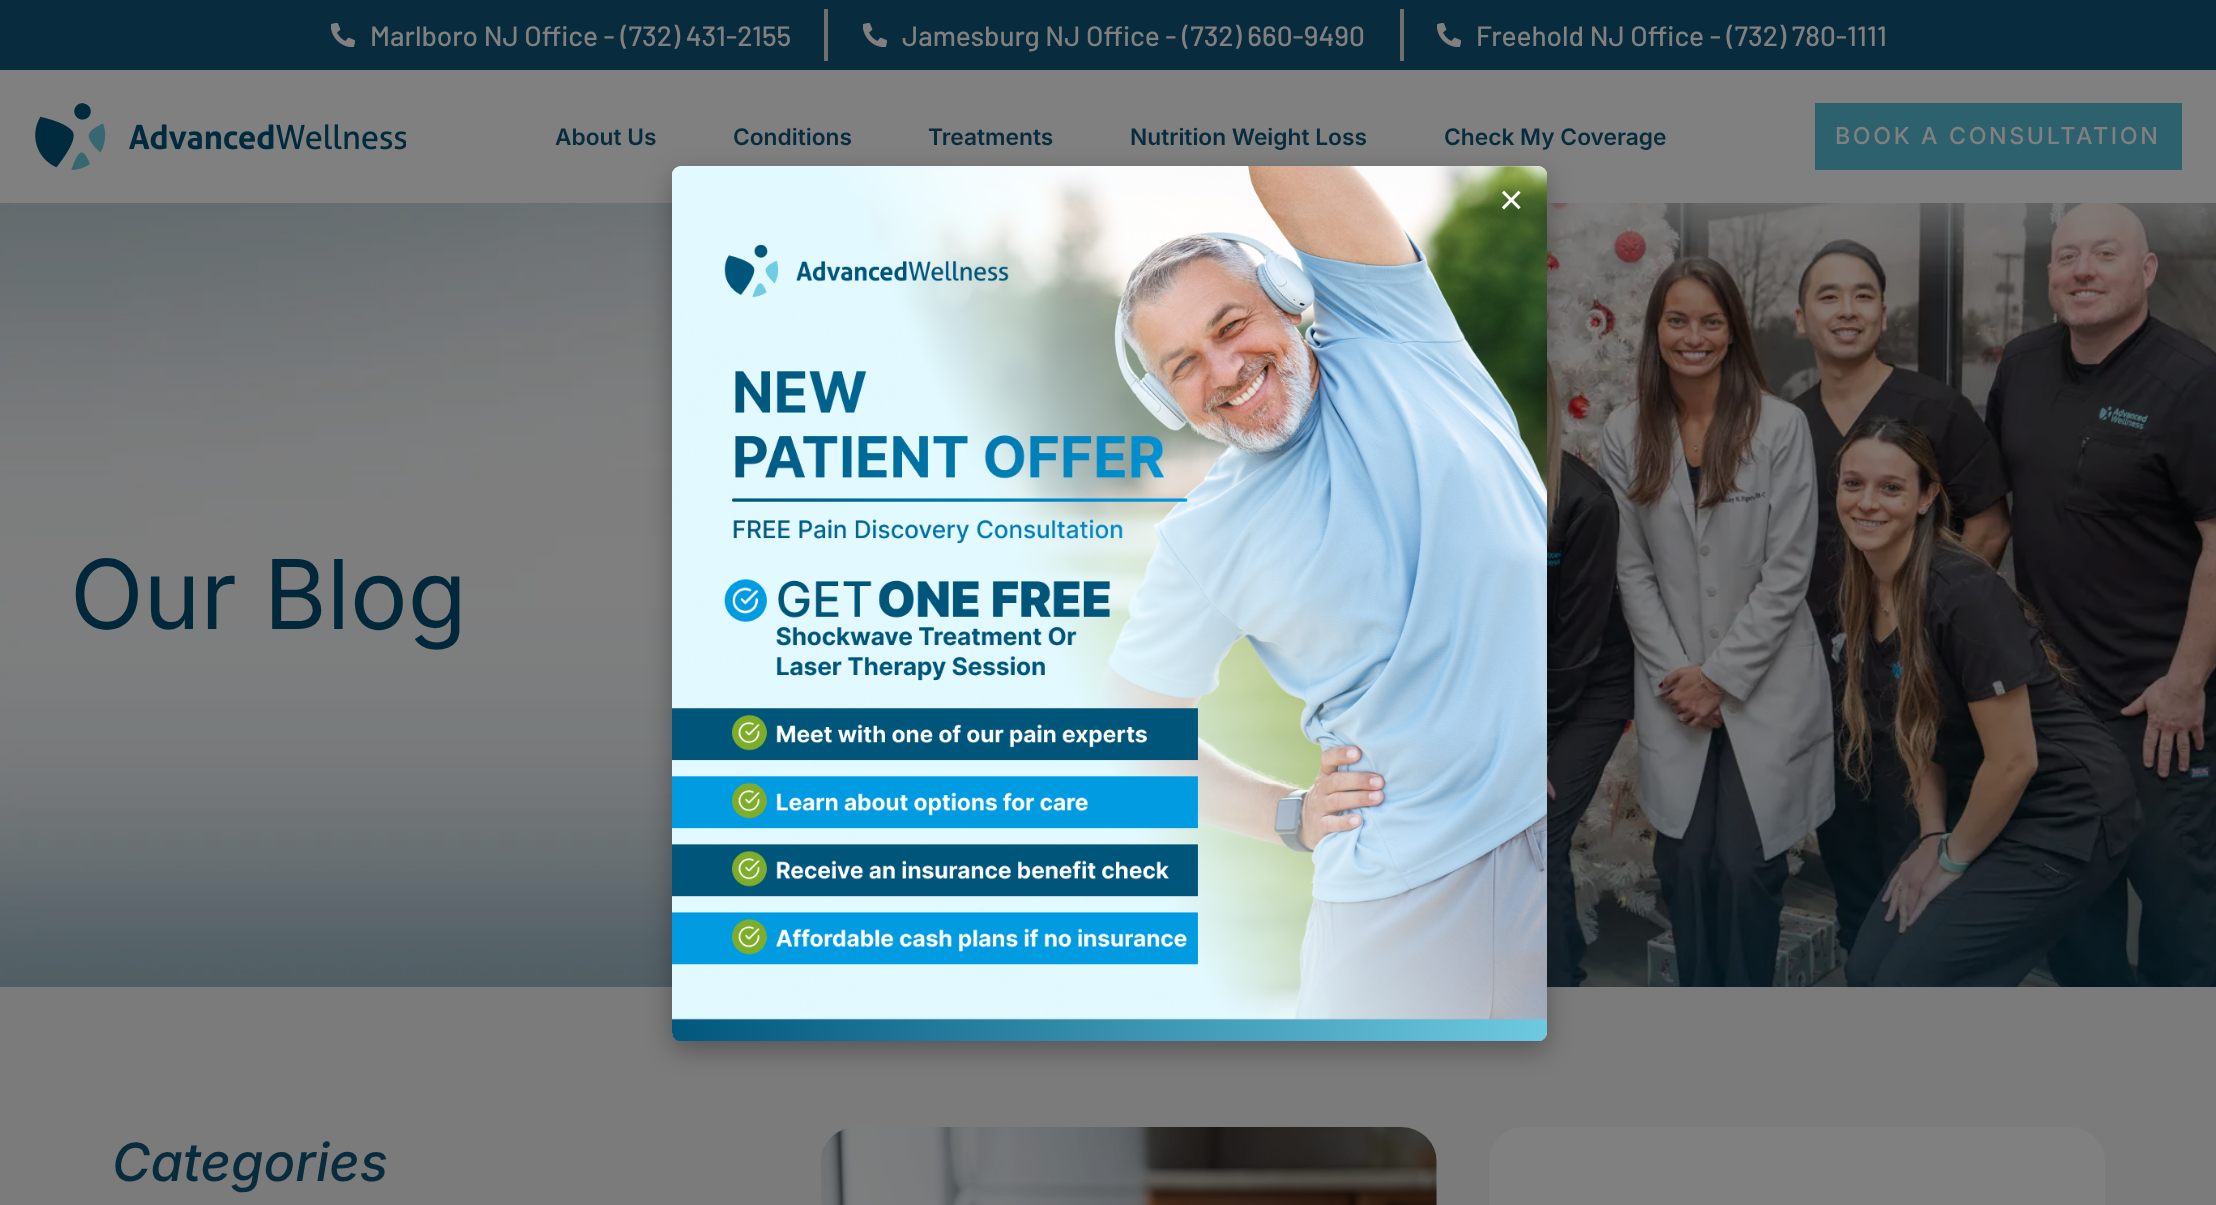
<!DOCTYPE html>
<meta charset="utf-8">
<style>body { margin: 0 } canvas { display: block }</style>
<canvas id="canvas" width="2216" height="1205"></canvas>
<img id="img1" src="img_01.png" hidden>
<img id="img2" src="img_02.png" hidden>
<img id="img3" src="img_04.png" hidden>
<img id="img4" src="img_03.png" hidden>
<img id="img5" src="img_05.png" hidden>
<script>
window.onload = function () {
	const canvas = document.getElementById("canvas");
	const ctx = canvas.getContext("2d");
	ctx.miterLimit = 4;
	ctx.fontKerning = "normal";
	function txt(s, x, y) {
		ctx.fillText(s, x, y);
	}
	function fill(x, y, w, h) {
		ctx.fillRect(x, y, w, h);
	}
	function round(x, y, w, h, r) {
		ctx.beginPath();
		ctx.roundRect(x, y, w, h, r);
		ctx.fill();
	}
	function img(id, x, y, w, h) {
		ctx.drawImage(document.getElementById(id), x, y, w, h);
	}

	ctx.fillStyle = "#808080";
	fill(0, 0, 2216, 1205);
	ctx.fillStyle = "#082C3E";
	fill(0, 0, 2216, 70);
	img("img1", 331, 23, 24, 24);
	ctx.fillStyle = "#6F6F6F";
	fill(824, 9, 4, 52);
	img("img1", 863, 23, 24, 24);
	fill(1400, 9, 4, 52);
	img("img1", 1437, 23, 24, 24);
	img("img2", 35, 103, 371, 67);
	ctx.fillStyle = "#2E616E";
	fill(1815, 103, 367, 67);
	img("img3", 0, 203, 2216, 784);
	ctx.fillStyle = "#7B7B7B";
	fill(0, 987, 2216, 218);
	ctx.fillStyle = "rgba(0, 0, 0, 0.3)";
	ctx.filter = "blur(13px)";
	ctx.beginPath();
	ctx.roundRect(672, 175, 875, 875, 9);
	ctx.fill();
	ctx.filter = "none";
	ctx.fillStyle = "#FFFFFF";
	round(672, 166, 875, 875, 9);
	img("img4", 672, 166, 875, 875);
	ctx.fillStyle = "#808080";
	ctx.beginPath();
	ctx.moveTo(856, 1127);
	ctx.lineTo(1402, 1127);
	ctx.bezierCurveTo(1421.5, 1127, 1437, 1142.5, 1437, 1162);
	ctx.lineTo(1437, 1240);
	ctx.lineTo(821, 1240);
	ctx.lineTo(821, 1162);
	ctx.bezierCurveTo(821, 1142.5, 836.5, 1127, 856, 1127);
	ctx.closePath();
	ctx.fill();
	img("img5", 821, 1127, 616, 78);
	ctx.beginPath();
	ctx.moveTo(1524, 1127);
	ctx.lineTo(2070, 1127);
	ctx.bezierCurveTo(2089.5, 1127, 2105, 1142.5, 2105, 1162);
	ctx.lineTo(2105, 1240);
	ctx.lineTo(1489, 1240);
	ctx.lineTo(1489, 1162);
	ctx.bezierCurveTo(1489, 1142.5, 1504.5, 1127, 1524, 1127);
	ctx.closePath();
	ctx.fill();
	ctx.font = "500 28px Barlow";
	txt("Marlboro NJ Office - (732) 431-2155", 370, 46);
	txt("Jamesburg NJ Office - (732) 660-9490", 902, 46);
	txt("Freehold NJ Office - (732) 780-1111", 1476, 46);
	ctx.font = "600 22.75px Inter";
	ctx.fillStyle = "#082C3E";
	txt("About Us", 555, 145);
	txt("Conditions", 733, 145);
	txt("Treatments", 928, 145);
	txt("Nutrition Weight Loss", 1130, 145);
	txt("Check My Coverage", 1444, 145);
	ctx.letterSpacing = "2.6px";
	ctx.font = "500 23.25px Inter";
	ctx.fillStyle = "#808080";
	txt("BOOK A CONSULTATION", 1835, 144);
	ctx.letterSpacing = "0px";
	ctx.font = "42px Liberation Sans";
	ctx.fillStyle = "#FFFFFF";
	txt("×", 1499, 214);
	ctx.font = "96.25px Inter";
	ctx.fillStyle = "#00273A";
	txt("Our Blog", 70, 629);
	ctx.font = "italic 500 52.5px Inter";
	ctx.fillStyle = "#082C3E";
	txt("Categories", 112, 1181);
};
</script>
